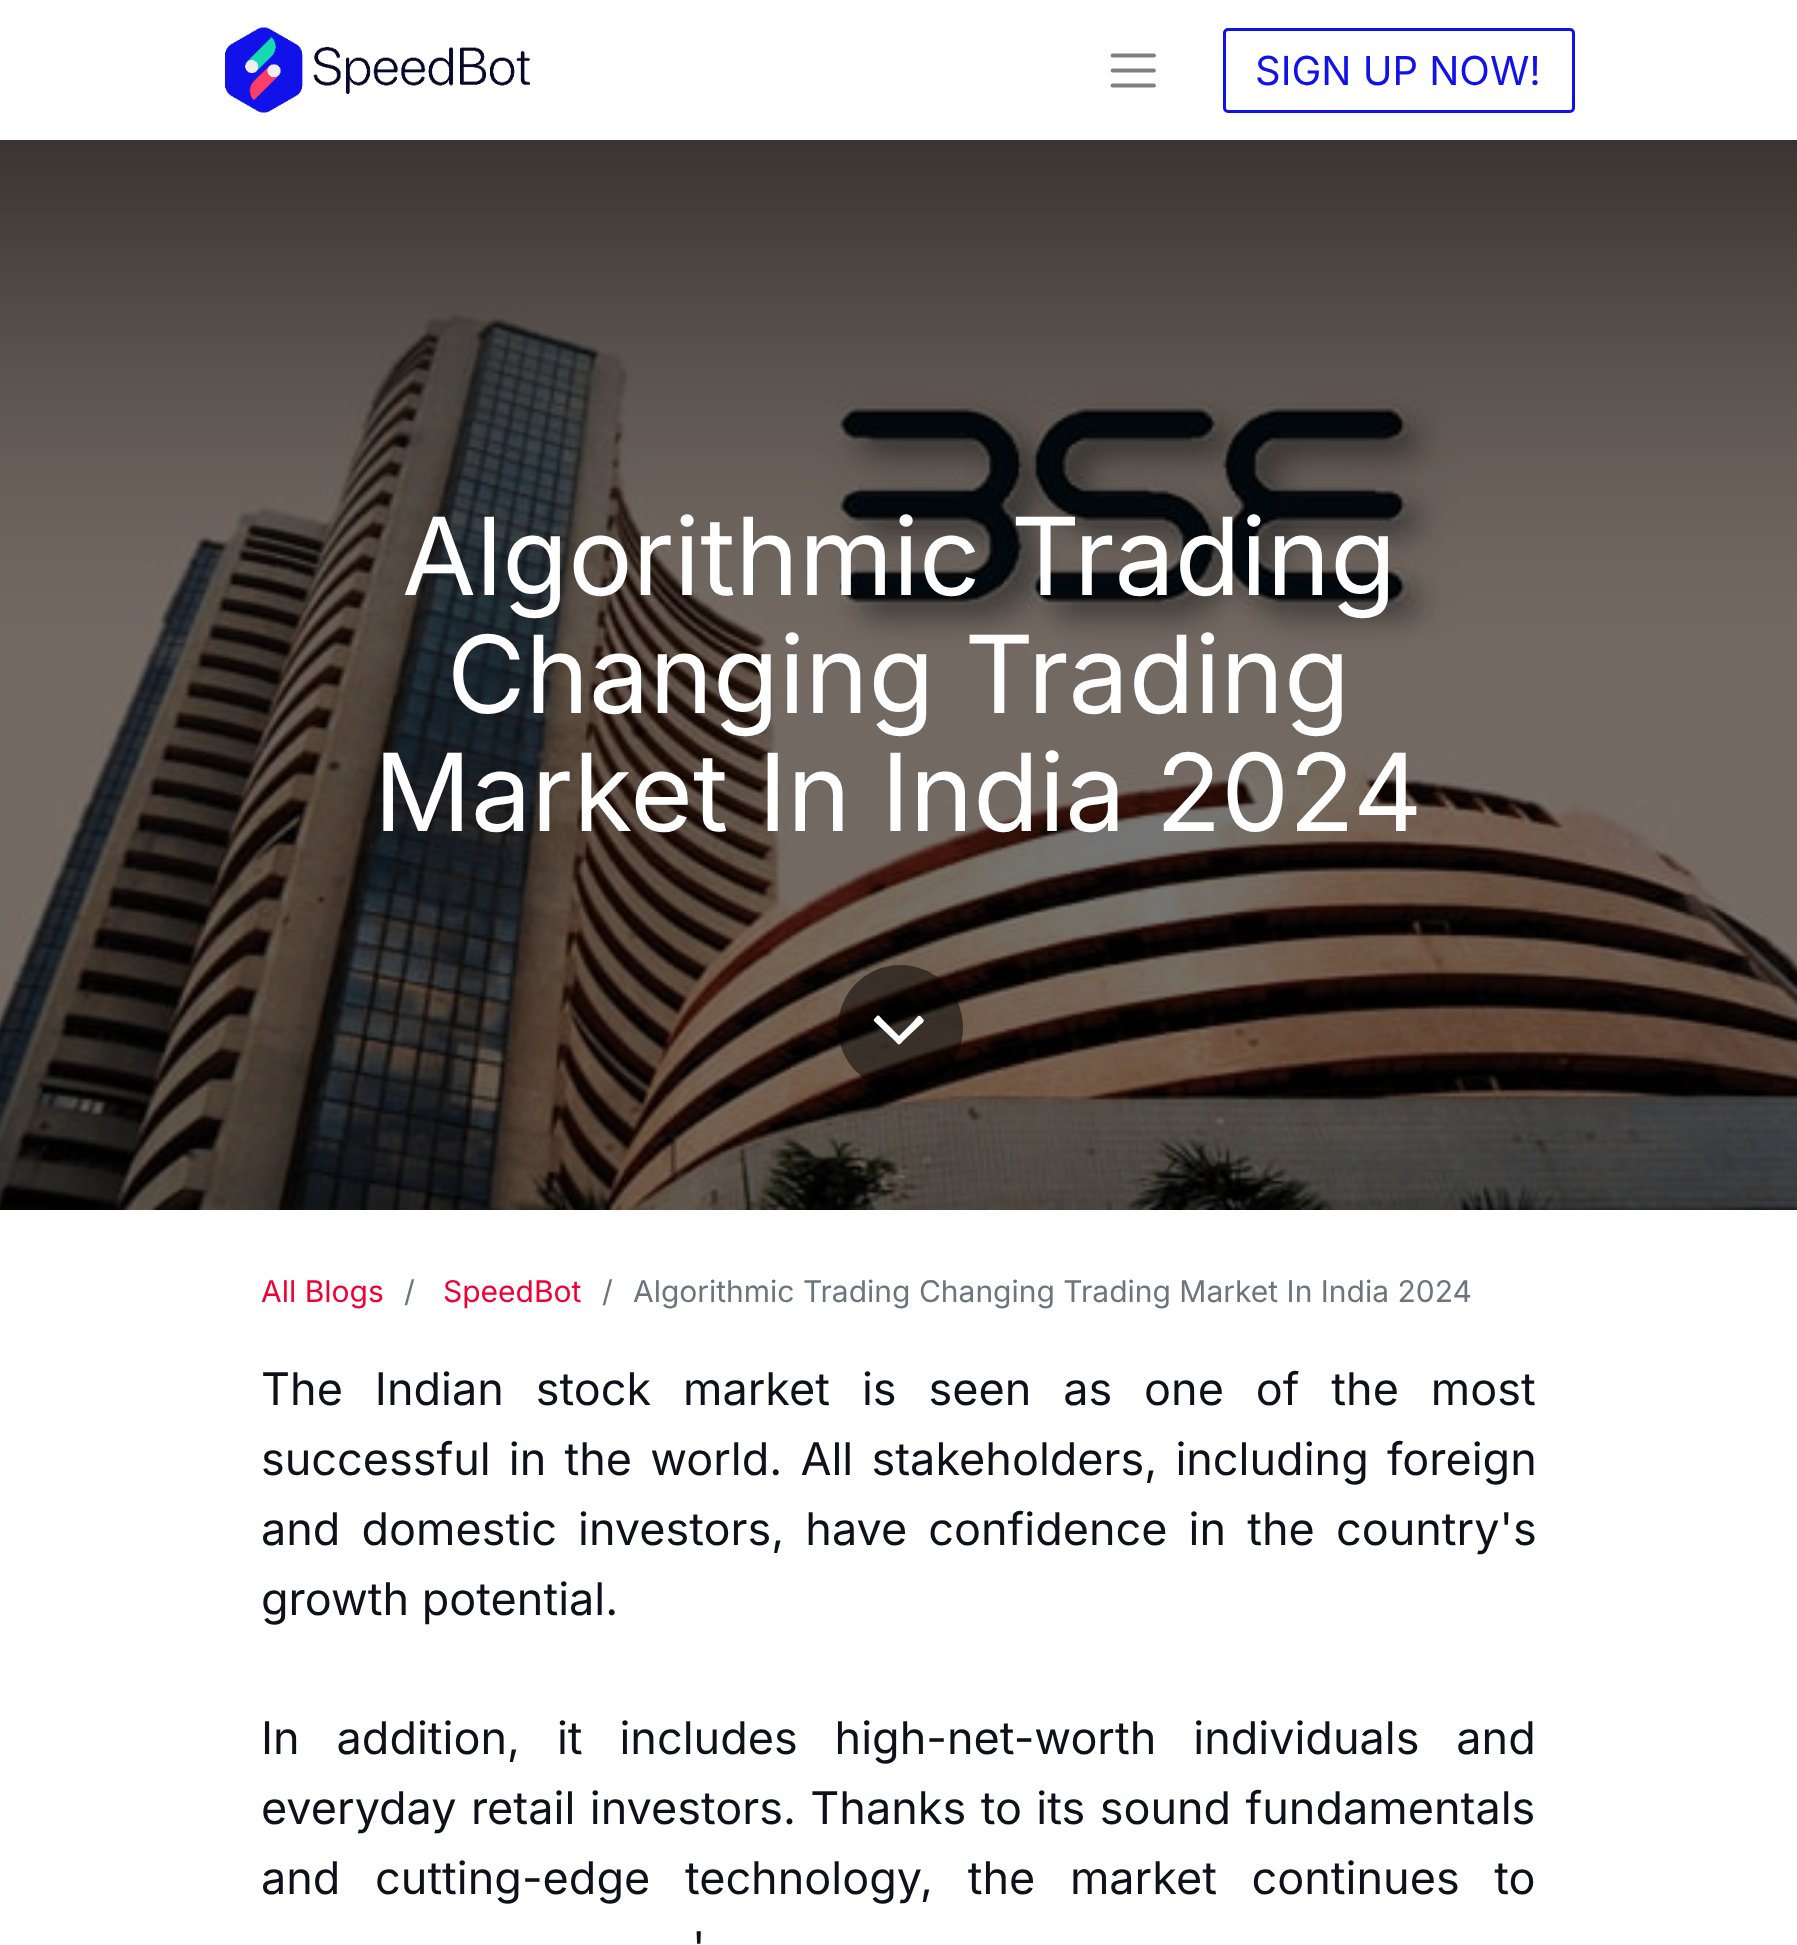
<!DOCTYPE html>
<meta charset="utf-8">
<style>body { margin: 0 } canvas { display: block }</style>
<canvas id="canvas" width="1797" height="1945"></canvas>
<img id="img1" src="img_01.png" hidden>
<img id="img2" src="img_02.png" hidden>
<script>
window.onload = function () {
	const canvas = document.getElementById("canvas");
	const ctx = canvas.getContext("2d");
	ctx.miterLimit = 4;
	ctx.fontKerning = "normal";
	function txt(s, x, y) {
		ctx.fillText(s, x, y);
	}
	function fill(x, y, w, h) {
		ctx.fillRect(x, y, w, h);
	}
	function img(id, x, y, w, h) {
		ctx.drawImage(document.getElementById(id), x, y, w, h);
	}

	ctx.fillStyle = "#FFFFFF";
	fill(0, 0, 1797, 1945);
	img("img1", 225, 27, 305, 86);
	ctx.beginPath();
	ctx.moveTo(1112.5, 55.5);
	ctx.lineTo(1154, 55.5);
	ctx.moveTo(1112.5, 70.5);
	ctx.lineTo(1154, 70.5);
	ctx.moveTo(1112.5, 85.5);
	ctx.lineTo(1154, 85.5);
	ctx.strokeStyle = "#808080";
	ctx.lineWidth = 3.8;
	ctx.lineCap = "round";
	ctx.stroke();
	ctx.beginPath();
	ctx.roundRect(1224.5, 29.5, 349, 82, 3.5);
	ctx.strokeStyle = "#1111EA";
	ctx.lineWidth = 3;
	ctx.stroke();
	img("img2", 0, 140, 1797, 1070);
	ctx.fillStyle = "rgba(0, 0, 0, 0.5)";
	ctx.beginPath();
	ctx.arc(900.5, 1027.5, 62.5, 0, Math.PI * 2);
	ctx.fill();
	ctx.fillStyle = "#FFFFFF";
	ctx.beginPath();
	ctx.moveTo(923, 1019);
	ctx.bezierCurveTo(926, 1021, 920, 1025, 920, 1025);
	ctx.lineTo(904, 1040);
	ctx.bezierCurveTo(898, 1046, 900, 1046, 894, 1040);
	ctx.lineTo(874, 1021);
	ctx.bezierCurveTo(873, 1020, 875, 1018, 876, 1017);
	ctx.bezierCurveTo(879, 1014, 879, 1016, 882, 1019);
	ctx.lineTo(899, 1036);
	ctx.lineTo(912, 1023);
	ctx.bezierCurveTo(919, 1016, 918, 1013, 923, 1019);
	ctx.closePath();
	ctx.fill();
	ctx.font = "40px Inter";
	ctx.fillStyle = "#1111EA";
	txt("SIGN UP NOW!", 1255, 85);
	ctx.font = "107.5px Inter";
	ctx.fillStyle = "#FFFFFF";
	txt("Algorithmic Trading", 402, 595);
	txt("Changing Trading", 447, 713);
	txt("Market In India 2024", 374, 831);
	ctx.font = "30px Inter";
	ctx.fillStyle = "#F10034";
	txt("All Blogs", 261, 1302);
	ctx.fillStyle = "#6C757D";
	txt("/", 404, 1302);
	ctx.fillStyle = "#F10034";
	txt("SpeedBot", 443, 1302);
	ctx.fillStyle = "#6C757D";
	txt("/", 602, 1302);
	txt("Algorithmic Trading Changing Trading Market In India 2024", 633, 1302);
	ctx.wordSpacing = "19.25px";
	ctx.font = "45px Inter";
	ctx.fillStyle = "#0E101A";
	txt("The Indian stock market is seen as one of the most", 261, 1405);
	ctx.wordSpacing = "5.5px";
	txt("successful in the world. All stakeholders, including foreign", 261, 1475);
	ctx.wordSpacing = "8.5px";
	txt("and domestic investors, have confidence in the country's", 261, 1545);
	ctx.wordSpacing = "0px";
	txt("growth potential.", 261, 1615);
	ctx.wordSpacing = "24.25px";
	txt("In addition, it includes high-net-worth individuals and", 261, 1754);
	ctx.wordSpacing = "1.75px";
	txt("everyday retail investors. Thanks to its sound fundamentals", 261, 1824);
	ctx.wordSpacing = "22px";
	txt("and cutting-edge technology, the market continues to", 261, 1894);
	ctx.wordSpacing = "0px";
	txt("'", 692, 1964);
};
</script>
